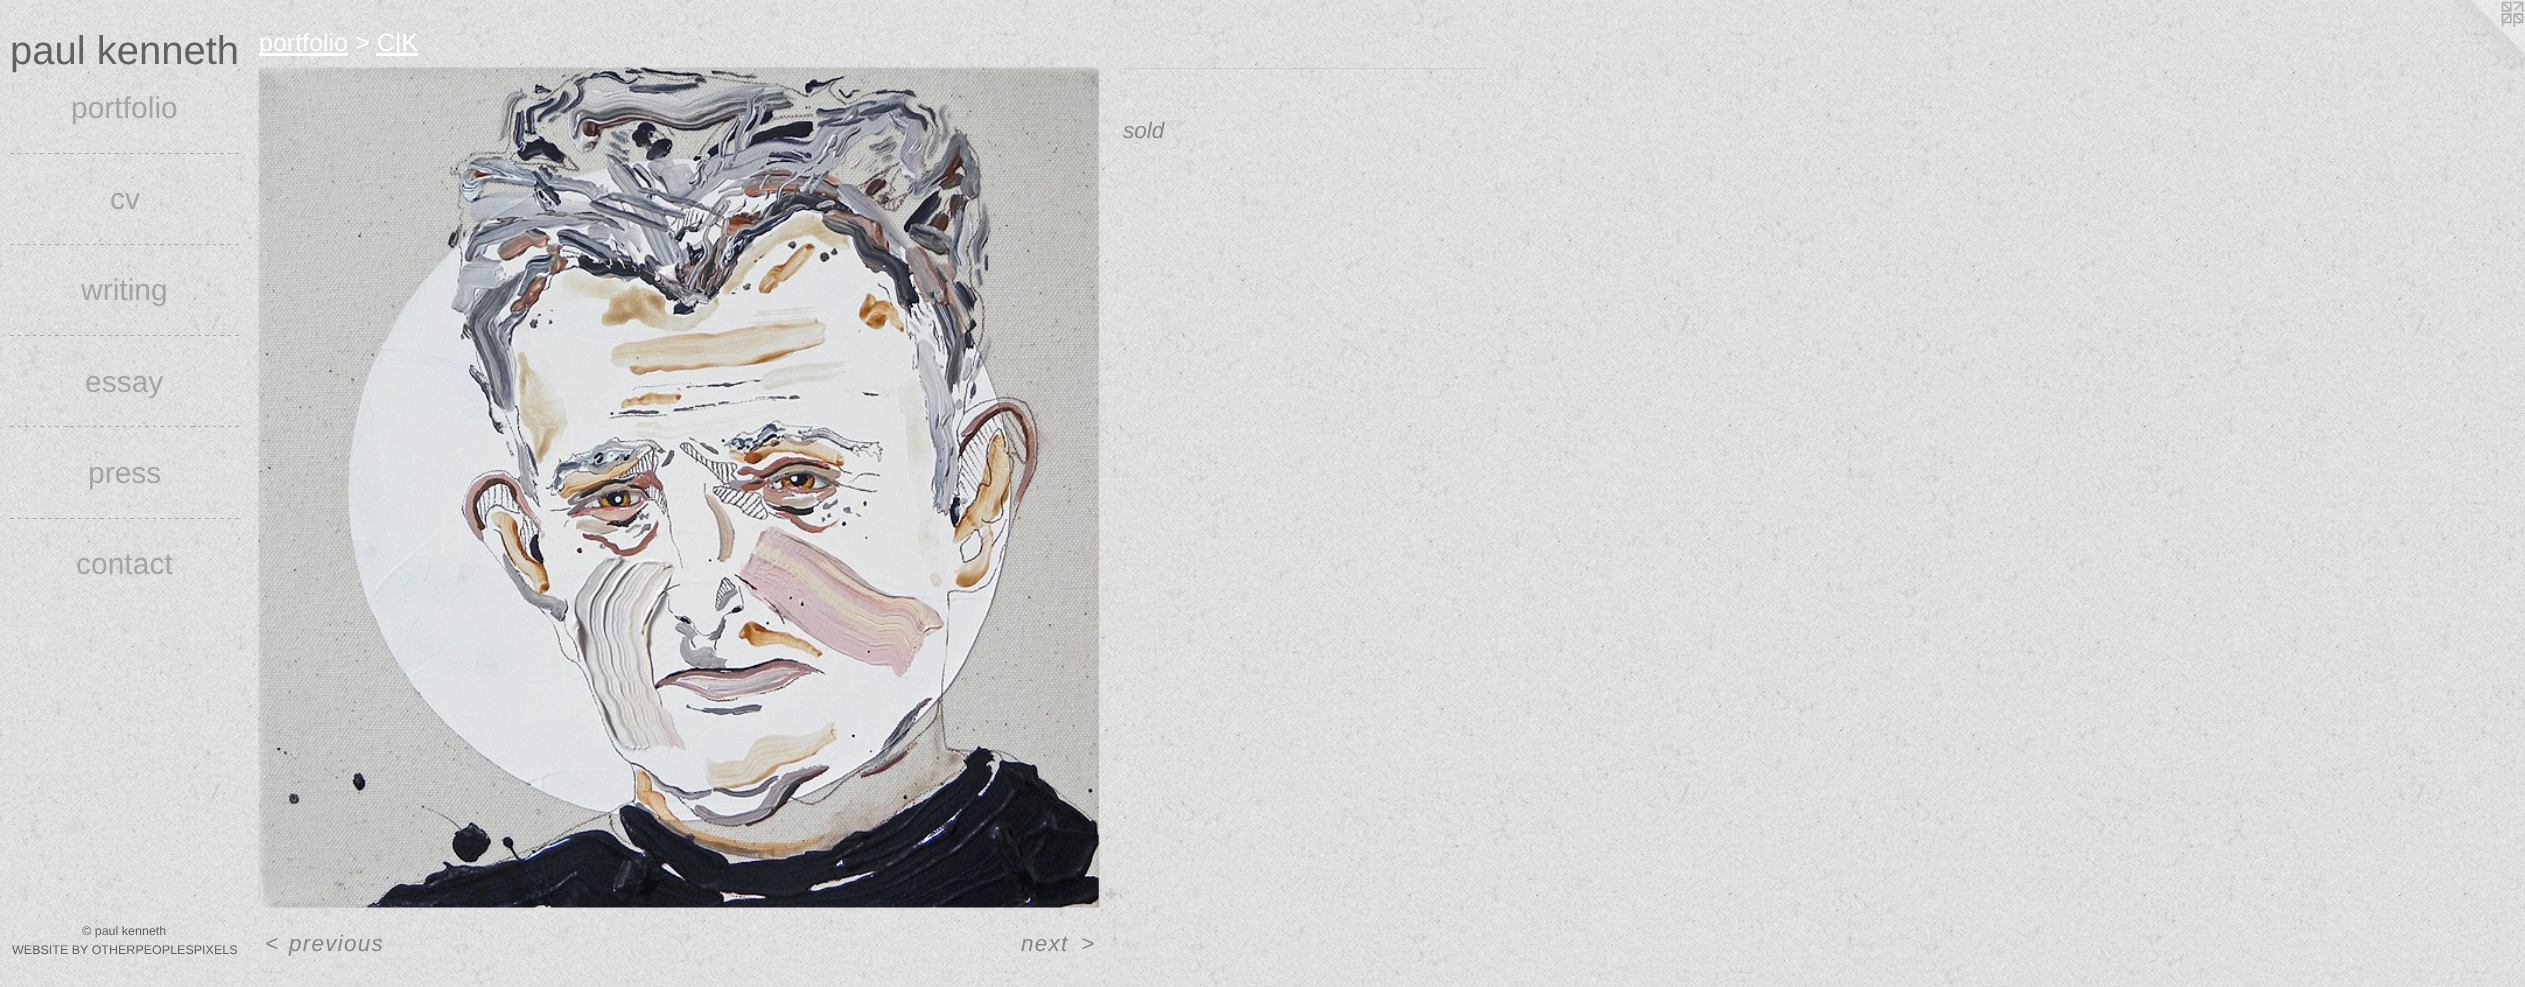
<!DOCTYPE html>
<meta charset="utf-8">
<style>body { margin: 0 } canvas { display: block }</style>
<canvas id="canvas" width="2525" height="987"></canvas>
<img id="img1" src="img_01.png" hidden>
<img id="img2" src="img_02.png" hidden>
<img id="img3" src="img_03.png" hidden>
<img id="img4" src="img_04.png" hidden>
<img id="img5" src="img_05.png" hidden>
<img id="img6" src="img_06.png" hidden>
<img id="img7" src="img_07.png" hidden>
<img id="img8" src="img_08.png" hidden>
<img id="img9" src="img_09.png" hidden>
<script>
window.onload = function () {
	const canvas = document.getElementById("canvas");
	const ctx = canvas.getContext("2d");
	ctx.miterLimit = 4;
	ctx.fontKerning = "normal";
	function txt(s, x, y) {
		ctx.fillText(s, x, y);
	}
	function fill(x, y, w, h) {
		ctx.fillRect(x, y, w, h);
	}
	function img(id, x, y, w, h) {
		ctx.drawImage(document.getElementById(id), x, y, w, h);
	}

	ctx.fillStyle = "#FFFFFF";
	fill(0, 0, 2525, 987);
	img("img1", 0, 0, 2525, 987);
	img("img2", 10, 153, 229, 1);
	img("img3", 10, 244, 229, 1);
	img("img4", 10, 335, 229, 1);
	img("img5", 10, 426, 229, 1);
	img("img6", 10, 518, 229, 1);
	fill(259, 53, 89, 3);
	fill(376, 53, 42, 3);
	ctx.fillStyle = "rgba(134, 133, 133, 0.2)";
	fill(1124, 68, 362, 1);
	img("img7", 258, 67, 841, 841);
	img("img8", 1105, 888, 12, 12);
	img("img9", 2455, 0, 70, 70);
	ctx.font = "40px Liberation Sans";
	ctx.fillStyle = "#616161";
	txt("paul kenneth", 10, 64);
	ctx.font = "30px Liberation Sans";
	ctx.fillStyle = "#A5A4A4";
	txt("portfolio", 71, 118);
	txt("cv", 110, 209);
	txt("writing", 81, 300);
	txt("essay", 85, 392);
	txt("press", 88, 483);
	txt("contact", 76, 574);
	ctx.font = "12.5px Liberation Sans";
	ctx.fillStyle = "#616161";
	txt("© paul kenneth", 82, 935);
	txt("WEBSITE BY OTHERPEOPLESPIXELS", 12, 954);
	ctx.font = "25px Liberation Sans";
	ctx.fillStyle = "#FFFFFF";
	txt("portfolio >", 259, 51);
	txt("C|K", 377, 51);
	ctx.font = "italic 22.5px Liberation Sans";
	ctx.fillStyle = "#868585";
	txt("sold", 1123, 138);
	ctx.letterSpacing = "1.25px";
	txt("<", 265, 951);
	txt("previous", 289, 951);
	txt("next", 1021, 951);
	txt(">", 1081, 951);
};
</script>
